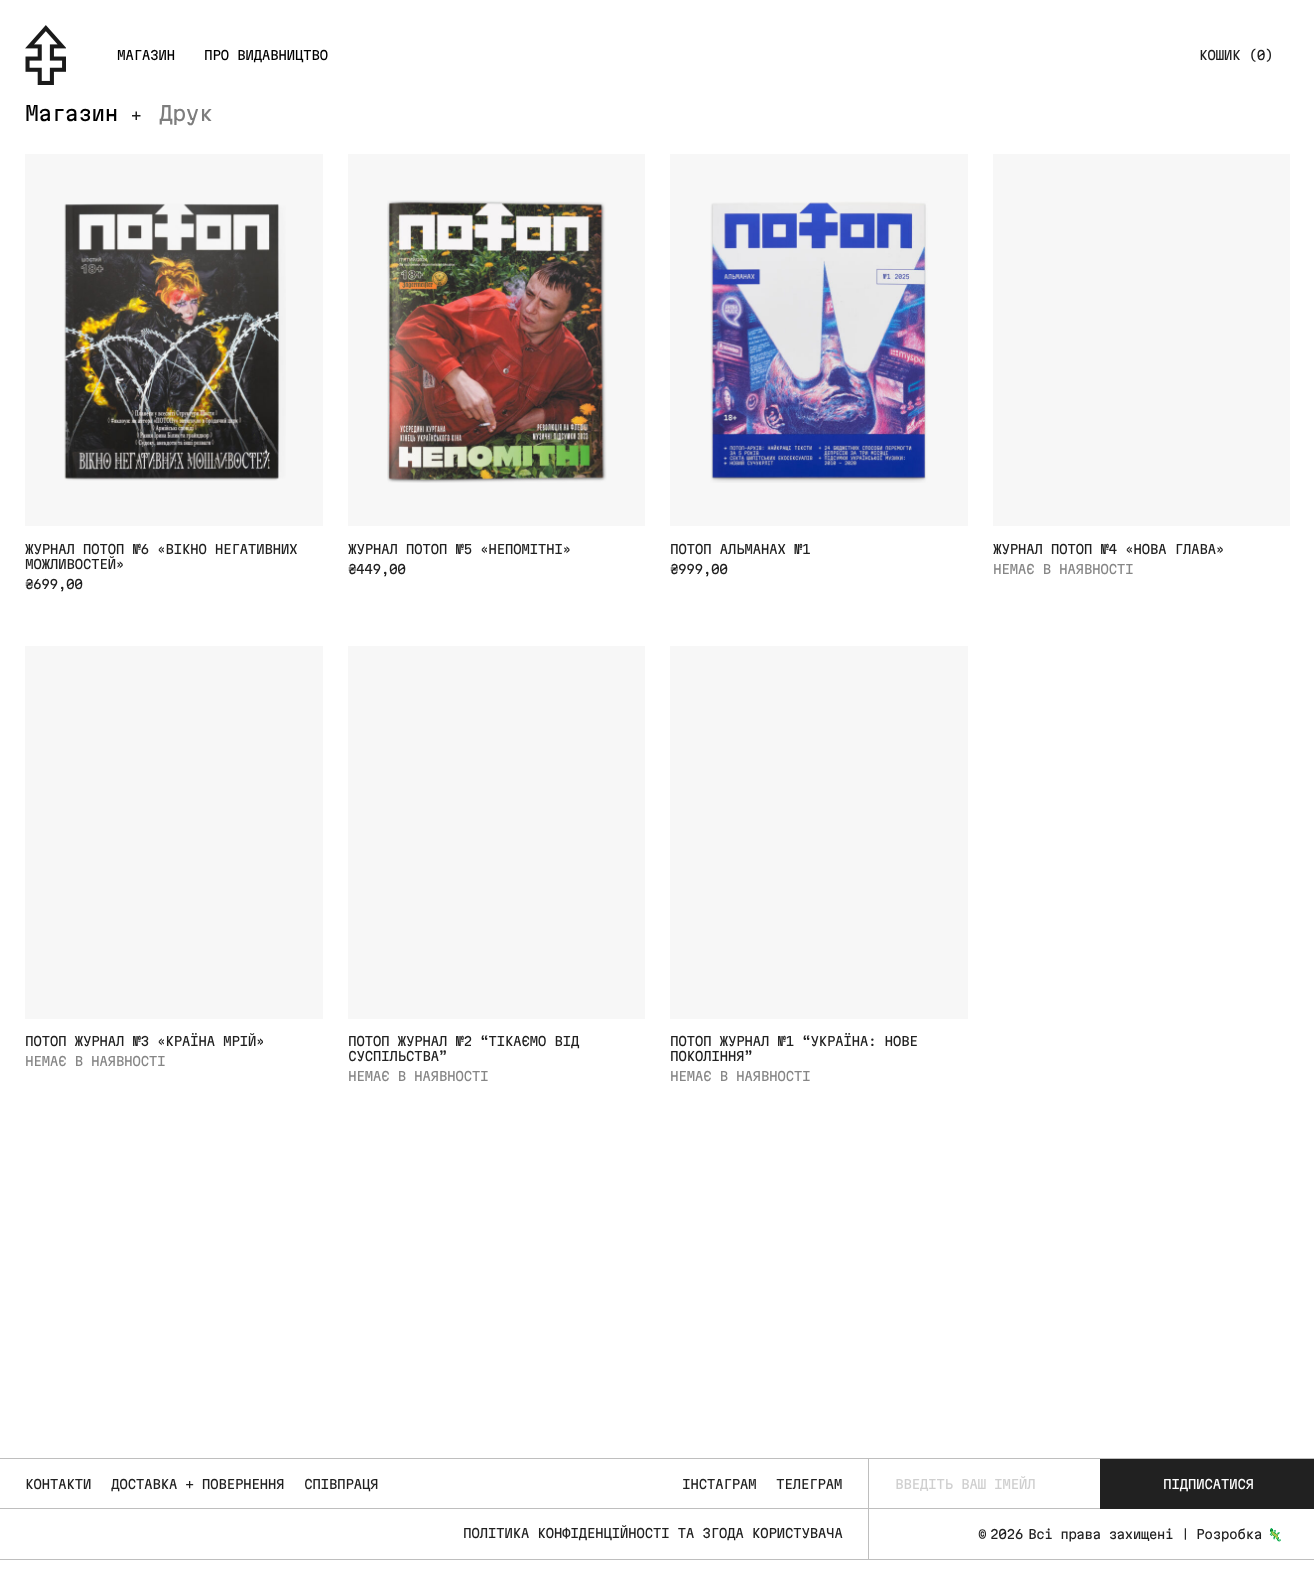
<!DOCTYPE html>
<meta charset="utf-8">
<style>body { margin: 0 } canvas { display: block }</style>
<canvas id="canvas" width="1314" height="1570"></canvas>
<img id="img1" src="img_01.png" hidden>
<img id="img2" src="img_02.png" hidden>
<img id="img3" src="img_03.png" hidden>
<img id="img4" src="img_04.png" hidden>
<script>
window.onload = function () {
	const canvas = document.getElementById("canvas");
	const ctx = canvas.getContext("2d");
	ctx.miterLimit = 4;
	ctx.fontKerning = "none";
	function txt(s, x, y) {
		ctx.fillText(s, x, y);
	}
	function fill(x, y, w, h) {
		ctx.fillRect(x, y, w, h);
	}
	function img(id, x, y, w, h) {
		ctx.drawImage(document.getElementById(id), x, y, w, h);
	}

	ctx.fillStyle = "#FFFFFF";
	fill(0, 0, 1314, 1570);
	img("img1", 25, 25, 41, 60);
	ctx.fillStyle = "#F7F7F7";
	fill(25, 154, 298, 372);
	img("img2", 64, 203, 222, 278);
	fill(348, 154, 297, 372);
	img("img3", 387, 200, 220, 283);
	fill(670, 154, 298, 372);
	img("img4", 710, 201, 218, 282);
	fill(993, 154, 297, 372);
	fill(25, 646, 298, 373);
	fill(348, 646, 297, 373);
	fill(670, 646, 298, 373);
	ctx.fillStyle = "#BEBEBE";
	fill(0, 1559, 1314, 1);
	fill(0, 1458, 1314, 1);
	fill(868, 1459, 1, 100);
	fill(0, 1508, 1100, 1);
	ctx.fillStyle = "#212121";
	fill(1100, 1459, 214, 50);
	ctx.letterSpacing = "-0.5px";
	ctx.font = "12.5px Martian Mono";
	ctx.fillStyle = "#000000";
	txt("МАГАЗИН", 117, 60);
	txt("ПРО ВИДАВНИЦТВО", 204, 60);
	ctx.fillStyle = "#212121";
	txt("КОШИК (0)", 1199, 60);
	ctx.letterSpacing = "-0.75px";
	ctx.font = "20px Martian Mono";
	ctx.fillStyle = "#000000";
	txt("Магазин", 25, 121);
	ctx.font = "15px Martian Mono";
	ctx.fillStyle = "#212121";
	txt("+", 131, 121);
	ctx.letterSpacing = "-0.7px";
	ctx.font = "20px Martian Mono";
	ctx.fillStyle = "#7D7D7D";
	txt("Друк", 159, 121);
	ctx.letterSpacing = "-0.5px";
	ctx.font = "12.5px Martian Mono";
	ctx.fillStyle = "#212121";
	txt("ЖУРНАЛ ПОТОП №6 «ВІКНО НЕГАТИВНИХ", 25, 554);
	txt("МОЖЛИВОСТЕЙ»", 25, 569);
	txt("₴", 25, 589);
	txt("699,00", 33, 589);
	txt("ЖУРНАЛ ПОТОП №5 «НЕПОМІТНІ»", 348, 554);
	txt("₴", 348, 574);
	txt("449,00", 356, 574);
	txt("ПОТОП АЛЬМАНАХ №1", 670, 554);
	txt("₴", 670, 574);
	txt("999,00", 678, 574);
	txt("ЖУРНАЛ ПОТОП №4 «НОВА ГЛАВА»", 993, 554);
	ctx.fillStyle = "#868686";
	txt("НЕМАЄ В НАЯВНОСТІ", 993, 574);
	ctx.fillStyle = "#212121";
	txt("ПОТОП ЖУРНАЛ №3 «КРАЇНА МРІЙ»", 25, 1046);
	ctx.fillStyle = "#868686";
	txt("НЕМАЄ В НАЯВНОСТІ", 25, 1066);
	ctx.fillStyle = "#212121";
	txt("ПОТОП ЖУРНАЛ №2 “ТІКАЄМО ВІД", 348, 1046);
	txt("СУСПІЛЬСТВА”", 348, 1061);
	ctx.fillStyle = "#868686";
	txt("НЕМАЄ В НАЯВНОСТІ", 348, 1081);
	ctx.fillStyle = "#212121";
	txt("ПОТОП ЖУРНАЛ №1 “УКРАЇНА: НОВЕ", 670, 1046);
	txt("ПОКОЛІННЯ”", 670, 1061);
	ctx.fillStyle = "#868686";
	txt("НЕМАЄ В НАЯВНОСТІ", 670, 1081);
	ctx.fillStyle = "#212121";
	txt("КОНТАКТИ", 25, 1489);
	txt("ДОСТАВКА + ПОВЕРНЕННЯ", 111, 1489);
	txt("СПІВПРАЦЯ", 304, 1489);
	txt("ІНСТАГРАМ", 682, 1489);
	txt("ТЕЛЕГРАМ", 776, 1489);
	ctx.save();
	ctx.beginPath();
	ctx.rect(895, 1476, 159, 15);
	ctx.clip();
	ctx.fillStyle = "#CFCFCF";
	txt("ВВЕДІТЬ ВАШ ІМЕЙЛ", 895, 1489);
	ctx.restore();
	ctx.fillStyle = "#FFFFFF";
	txt("ПІДПИСАТИСЯ", 1163, 1489);
	ctx.fillStyle = "#212121";
	txt("ПОЛІТИКА КОНФІДЕНЦІЙНОСТІ ТА ЗГОДА КОРИСТУВАЧА", 463, 1538);
	ctx.letterSpacing = "-0.7px";
	txt("©", 978, 1539);
	ctx.letterSpacing = "-0.5px";
	txt("2026", 990, 1539);
	ctx.letterSpacing = "-0.7px";
	txt("Всі права захищені |", 1028, 1539);
	ctx.letterSpacing = "-0.5px";
	txt("Розробка", 1196, 1539);
	ctx.font = "12.5px Noto Color Emoji";
	txt("🦎", 1267, 1539);
};
</script>
